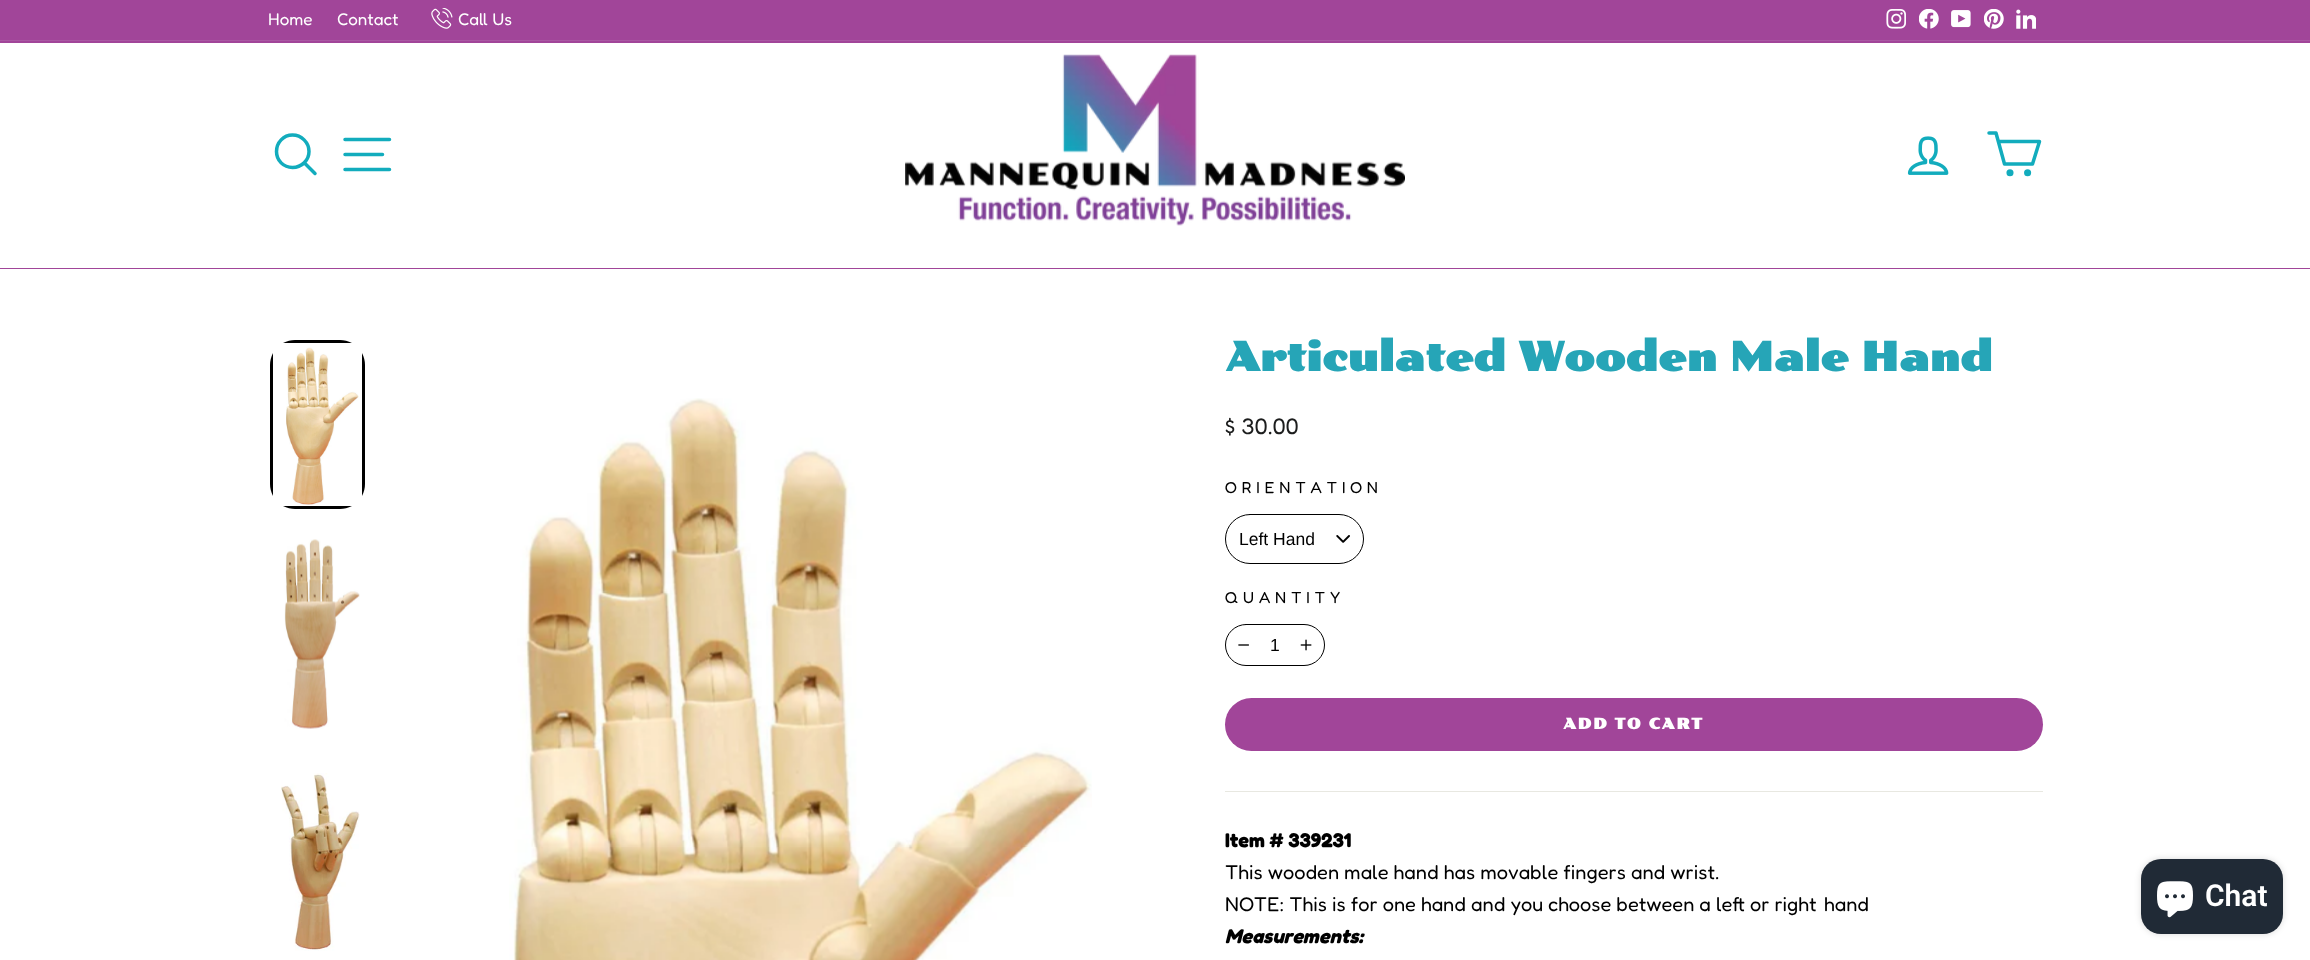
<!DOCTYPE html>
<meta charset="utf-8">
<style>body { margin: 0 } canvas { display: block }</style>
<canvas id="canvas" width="2310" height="960"></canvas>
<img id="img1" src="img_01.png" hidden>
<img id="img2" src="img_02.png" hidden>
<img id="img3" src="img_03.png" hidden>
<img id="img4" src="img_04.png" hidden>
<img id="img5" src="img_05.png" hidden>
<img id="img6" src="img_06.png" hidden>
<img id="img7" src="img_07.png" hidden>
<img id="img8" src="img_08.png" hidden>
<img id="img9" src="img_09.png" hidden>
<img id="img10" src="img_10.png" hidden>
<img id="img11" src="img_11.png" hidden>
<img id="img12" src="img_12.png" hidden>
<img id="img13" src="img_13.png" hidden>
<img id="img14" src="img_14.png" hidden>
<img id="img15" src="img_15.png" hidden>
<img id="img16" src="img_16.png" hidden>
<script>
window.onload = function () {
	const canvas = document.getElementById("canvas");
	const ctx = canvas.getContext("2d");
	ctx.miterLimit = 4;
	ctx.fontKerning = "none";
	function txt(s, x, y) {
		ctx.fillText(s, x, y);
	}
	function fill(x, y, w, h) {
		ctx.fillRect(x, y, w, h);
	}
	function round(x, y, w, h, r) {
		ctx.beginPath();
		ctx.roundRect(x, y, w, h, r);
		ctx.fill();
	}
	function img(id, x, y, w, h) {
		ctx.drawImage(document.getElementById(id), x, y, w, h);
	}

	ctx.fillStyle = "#FFFFFF";
	fill(0, 0, 2310, 960);
	ctx.fillStyle = "#A14599";
	fill(0, 0, 2310, 40);
	img("img1", 431, 8, 22, 21);
	img("img2", 1886, 9, 20, 20);
	img("img3", 1919, 9, 20, 20);
	img("img4", 1951, 10, 20, 18);
	img("img5", 1984, 9, 20, 20);
	img("img6", 2016, 9, 20, 20);
	fill(0, 41, 2310, 228);
	ctx.fillStyle = "#AA58A3";
	fill(0, 40, 2310, 1);
	ctx.fillStyle = "#FFFFFF";
	fill(0, 43, 2310, 225);
	ctx.beginPath();
	ctx.moveTo(309, 151.5);
	ctx.bezierCurveTo(309, 160.5, 301.5, 167.5, 292.5, 167.5);
	ctx.bezierCurveTo(283.5, 167.5, 276.5, 160.5, 276.5, 151.5);
	ctx.bezierCurveTo(276.5, 142.5, 283.5, 135, 292.5, 135);
	ctx.bezierCurveTo(301.5, 135, 309, 142.5, 309, 151.5);
	ctx.closePath();
	ctx.moveTo(315, 173.5);
	ctx.lineTo(304.5, 163);
	ctx.strokeStyle = "#12ACBD";
	ctx.lineWidth = 3.5;
	ctx.lineCap = "round";
	ctx.lineJoin = "round";
	ctx.stroke();
	ctx.beginPath();
	ctx.moveTo(345, 139.5);
	ctx.lineTo(389.5, 139.5);
	ctx.moveTo(345, 154.5);
	ctx.lineTo(382.5, 154.5);
	ctx.moveTo(345, 169.5);
	ctx.lineTo(389.5, 169.5);
	ctx.stroke();
	img("img7", 905, 54, 500, 172);
	img("img8", 1907, 136, 42, 39);
	ctx.beginPath();
	ctx.moveTo(1998.5, 141.5);
	ctx.lineTo(2039.5, 141.5);
	ctx.lineTo(2032.5, 164);
	ctx.lineTo(2004.5, 164);
	ctx.lineTo(1996, 133);
	ctx.lineTo(1989, 133);
	ctx.stroke();
	ctx.beginPath();
	ctx.arc(2010, 172.8, 1.8, 0, Math.PI * 2);
	ctx.stroke();
	ctx.beginPath();
	ctx.arc(2027.6, 172.8, 1.8, 0, Math.PI * 2);
	ctx.stroke();
	img("img9", 286, 347, 73, 158);
	ctx.fillStyle = "#000000";
	ctx.beginPath();
	ctx.moveTo(270, 365);
	ctx.lineTo(270, 484);
	ctx.bezierCurveTo(270, 488, 271, 492, 273, 496);
	ctx.lineTo(273, 353);
	ctx.bezierCurveTo(271, 357, 270, 361, 270, 365);
	ctx.closePath();
	ctx.moveTo(295, 340);
	ctx.bezierCurveTo(291, 340, 287, 341, 283, 343);
	ctx.lineTo(352, 343);
	ctx.bezierCurveTo(348, 341, 344, 340, 340, 340);
	ctx.closePath();
	ctx.moveTo(365, 365);
	ctx.bezierCurveTo(365, 361, 364, 357, 362, 353);
	ctx.lineTo(362, 496);
	ctx.bezierCurveTo(364, 492, 365, 488, 365, 484);
	ctx.closePath();
	ctx.moveTo(340, 509);
	ctx.bezierCurveTo(344, 509, 348, 508, 352, 506);
	ctx.lineTo(283, 506);
	ctx.bezierCurveTo(287, 508, 291, 509, 295, 509);
	ctx.closePath();
	ctx.fill("evenodd");
	img("img10", 284, 539, 76, 190);
	img("img11", 281, 773, 79, 178);
	img("img12", 509, 398, 583, 562);
	img("img13", 1336, 535, 14, 8);
	ctx.beginPath();
	ctx.roundRect(1225.5, 514.5, 138, 49, 24.5);
	ctx.strokeStyle = "#000000";
	ctx.lineWidth = 1;
	ctx.lineJoin = "miter";
	ctx.stroke();
	ctx.beginPath();
	ctx.roundRect(1225.5, 624.5, 99, 41, 20.5);
	ctx.stroke();
	img("img14", 1238, 644, 11, 2);
	img("img15", 1300, 639, 12, 12);
	ctx.fillStyle = "#A14599";
	round(1225, 698, 818, 53, 26.5);
	ctx.fillStyle = "#E8E8E1";
	fill(1225, 791, 818, 1);
	ctx.fillStyle = "rgba(0, 0, 0, 0.15)";
	ctx.filter = "blur(3px)";
	ctx.beginPath();
	ctx.roundRect(2141, 859, 142, 75, 20);
	ctx.fill();
	ctx.filter = "none";
	ctx.fillStyle = "#202A36";
	round(2141, 859, 142, 75, 20);
	img("img16", 2157, 881, 36, 37);
	ctx.font = "17px Fredoka";
	ctx.fillStyle = "#FFFFFF";
	txt("Home", 268, 25);
	txt("Contact", 337, 25);
	txt("Call Us", 458, 25);
	ctx.font = "bold 40px Poller One";
	ctx.fillStyle = "#26A5B7";
	txt("Articulated Wooden Male Hand", 1225, 371);
	ctx.font = "22.5px Fredoka";
	ctx.fillStyle = "#1C1D1D";
	txt("$ 30.00", 1225, 434);
	ctx.letterSpacing = "4.75px";
	ctx.font = "16px Fredoka";
	ctx.fillStyle = "#000000";
	txt("ORIENTATION", 1225, 493);
	ctx.letterSpacing = "0px";
	ctx.font = "17.5px Liberation Sans";
	txt("Left Hand", 1239, 545);
	ctx.letterSpacing = "4.75px";
	ctx.font = "16px Fredoka";
	txt("QUANTITY", 1225, 603);
	ctx.letterSpacing = "0px";
	ctx.font = "17.5px Liberation Sans";
	txt("1", 1270, 651);
	ctx.letterSpacing = "1.5px";
	ctx.font = "bold 15px Poller One";
	ctx.fillStyle = "#FFFFFF";
	txt("ADD TO CART", 1563, 729);
	ctx.letterSpacing = "0px";
	ctx.font = "bold 20px Fredoka";
	ctx.fillStyle = "#000000";
	txt("Item # 339231", 1225, 847);
	ctx.font = "20px Fredoka";
	txt("This wooden male hand has movable fingers and wrist.", 1225, 879);
	txt("NOTE: This is for one hand and you", 1225, 911);
	txt("choose between a left or right", 1548, 911);
	txt("hand", 1824, 911);
	ctx.font = "italic bold 20px Fredoka";
	txt("Measurements:", 1225, 943);
	ctx.font = "600 30px Roboto";
	ctx.fillStyle = "#FFFFFF";
	txt("Chat", 2205, 906);
};
</script>
